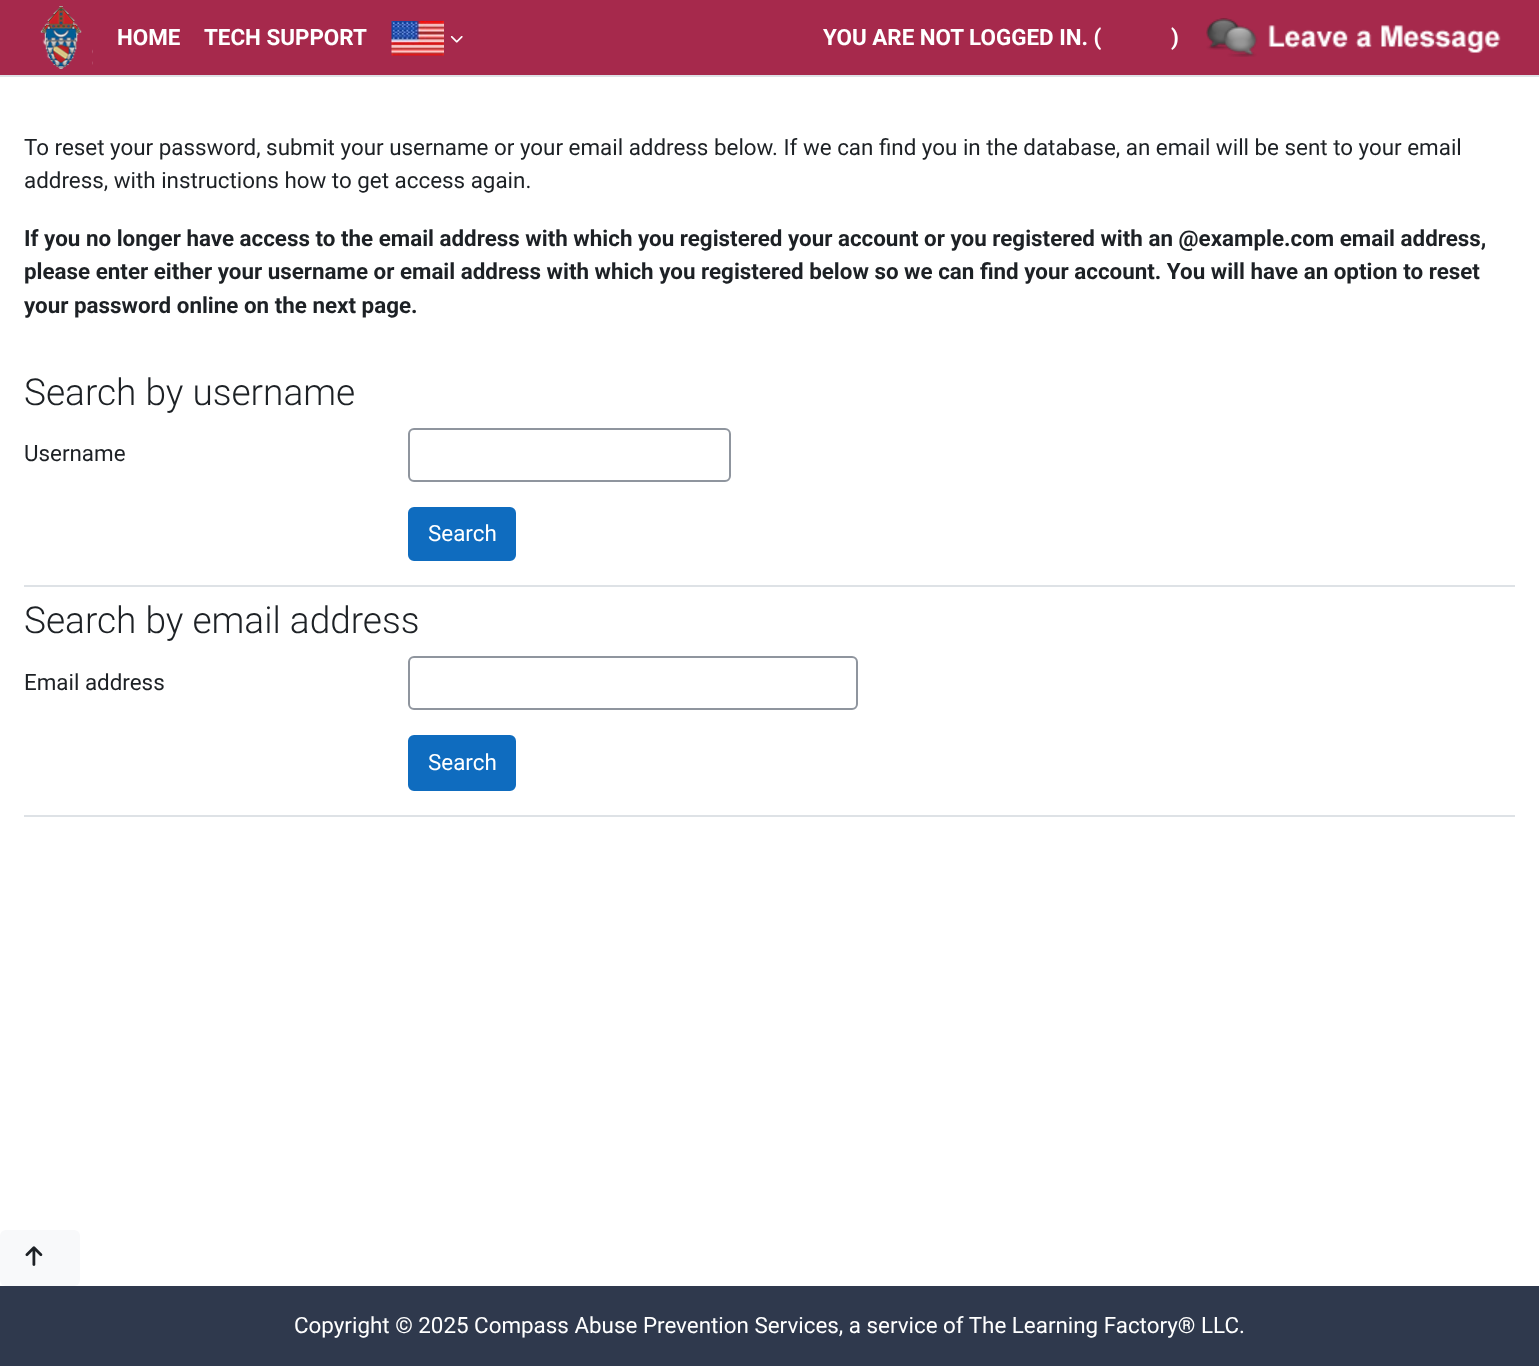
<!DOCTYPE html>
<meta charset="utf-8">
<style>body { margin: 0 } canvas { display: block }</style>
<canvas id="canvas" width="1539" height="1366"></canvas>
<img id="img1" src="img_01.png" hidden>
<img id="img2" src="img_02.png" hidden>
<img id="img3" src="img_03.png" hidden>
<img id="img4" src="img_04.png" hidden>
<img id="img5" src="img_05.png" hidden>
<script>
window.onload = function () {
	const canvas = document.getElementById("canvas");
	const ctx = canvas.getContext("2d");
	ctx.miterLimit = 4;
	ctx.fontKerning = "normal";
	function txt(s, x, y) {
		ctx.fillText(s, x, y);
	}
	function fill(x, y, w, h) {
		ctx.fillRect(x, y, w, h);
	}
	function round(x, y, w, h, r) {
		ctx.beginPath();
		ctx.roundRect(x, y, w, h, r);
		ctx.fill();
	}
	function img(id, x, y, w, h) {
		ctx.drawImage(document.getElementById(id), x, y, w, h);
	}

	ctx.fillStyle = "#FFFFFF";
	fill(0, 0, 1539, 1366);
	ctx.fillStyle = "#A6294C";
	fill(0, 0, 1539, 75);
	ctx.fillStyle = "#DEE2E6";
	fill(0, 75, 1539, 2);
	img("img1", 40, 6, 53, 63);
	img("img2", 391, 21, 53, 35);
	img("img3", 450, 36, 13, 7);
	img("img4", 1206, 18, 295, 39);
	fill(24, 585, 1491, 2);
	ctx.beginPath();
	ctx.roundRect(409, 429, 321, 52, 5);
	ctx.strokeStyle = "#8F959E";
	ctx.lineWidth = 2;
	ctx.stroke();
	ctx.fillStyle = "#0F6CBF";
	ctx.beginPath();
	ctx.roundRect(409, 508, 106, 52, 5);
	ctx.fill();
	ctx.strokeStyle = "#0F6CBF";
	ctx.stroke();
	ctx.fillStyle = "#DEE2E6";
	fill(24, 815, 1491, 2);
	ctx.beginPath();
	ctx.roundRect(409, 657, 448, 52, 5);
	ctx.strokeStyle = "#8F959E";
	ctx.stroke();
	ctx.fillStyle = "#0F6CBF";
	ctx.beginPath();
	ctx.roundRect(409, 736, 106, 54, 5);
	ctx.fill();
	ctx.strokeStyle = "#0F6CBF";
	ctx.stroke();
	ctx.fillStyle = "#F8F9FA";
	round(0, 1230, 80, 56, 6);
	img("img5", 25, 1246, 18, 20);
	ctx.fillStyle = "#2F394D";
	fill(0, 1286, 1539, 80);
	ctx.font = "bold 22.38px Roboto";
	ctx.fillStyle = "#FFFFFF";
	txt("HOME", 117, 45);
	txt("TECH SUPPORT", 204, 45);
	txt("YOU ARE NOT LOGGED IN. (", 823, 45);
	txt(")", 1171, 45);
	ctx.font = "22.38px Roboto";
	ctx.fillStyle = "#1D2125";
	txt("To reset your password, submit your username or your email address below. If we can find you in the database, an email will be sent to your email", 24, 155);
	txt("address, with instructions how to get access again.", 24, 188);
	ctx.font = "bold 22.38px Roboto";
	txt("If you no longer have access to the email address with which you registered your account or you registered with an @example.com email address,", 24, 246);
	txt("please enter either your username or email address with which you registered below so we can find your account. You will have an option to reset", 24, 279);
	txt("your password online on the next page.", 24, 313);
	ctx.font = "300 37px Roboto";
	txt("Search by username", 24, 405);
	ctx.font = "22.38px Roboto";
	txt("Username", 24, 461);
	ctx.fillStyle = "#FFFFFF";
	txt("Search", 428, 541);
	ctx.font = "300 37px Roboto";
	ctx.fillStyle = "#1D2125";
	txt("Search by email address", 24, 633);
	ctx.font = "22.38px Roboto";
	txt("Email address", 24, 690);
	ctx.fillStyle = "#FFFFFF";
	txt("Search", 428, 770);
	txt("Copyright © 2025 Compass Abuse Prevention Services, a service of The Learning Factory® LLC.", 294, 1333);
};
</script>
